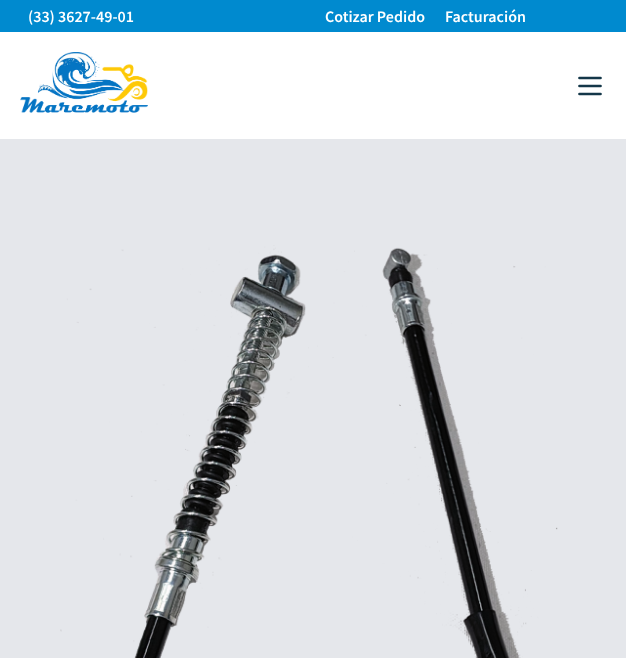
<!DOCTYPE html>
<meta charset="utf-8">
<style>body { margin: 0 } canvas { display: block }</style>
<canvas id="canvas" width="626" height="658"></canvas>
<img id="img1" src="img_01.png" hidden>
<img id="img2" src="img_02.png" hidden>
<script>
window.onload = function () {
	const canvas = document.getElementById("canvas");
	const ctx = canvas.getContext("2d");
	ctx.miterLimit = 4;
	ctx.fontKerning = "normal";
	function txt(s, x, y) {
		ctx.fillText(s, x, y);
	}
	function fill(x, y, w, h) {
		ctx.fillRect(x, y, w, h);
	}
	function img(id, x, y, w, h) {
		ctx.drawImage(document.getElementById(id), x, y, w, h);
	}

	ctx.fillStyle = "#FFFFFF";
	fill(0, 0, 626, 658);
	ctx.fillStyle = "#008ACF";
	fill(0, 0, 626, 32);
	img("img1", 20, 52, 128, 61);
	ctx.beginPath();
	ctx.moveTo(579.5, 78);
	ctx.lineTo(600.5, 78);
	ctx.moveTo(579.5, 86);
	ctx.lineTo(600.5, 86);
	ctx.moveTo(579.5, 94);
	ctx.lineTo(600.5, 94);
	ctx.strokeStyle = "#143749";
	ctx.lineWidth = 2.7;
	ctx.lineCap = "round";
	ctx.lineJoin = "round";
	ctx.stroke();
	ctx.fillStyle = "#E5E7EB";
	fill(0, 139, 626, 519);
	img("img2", 60, 245, 498, 413);
	ctx.font = "600 16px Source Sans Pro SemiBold";
	ctx.fillStyle = "#FFFFFF";
	txt("(33) 3627-49-01", 28, 22);
	txt("Cotizar Pedido", 325, 22);
	txt("Facturación", 445, 22);
};
</script>
